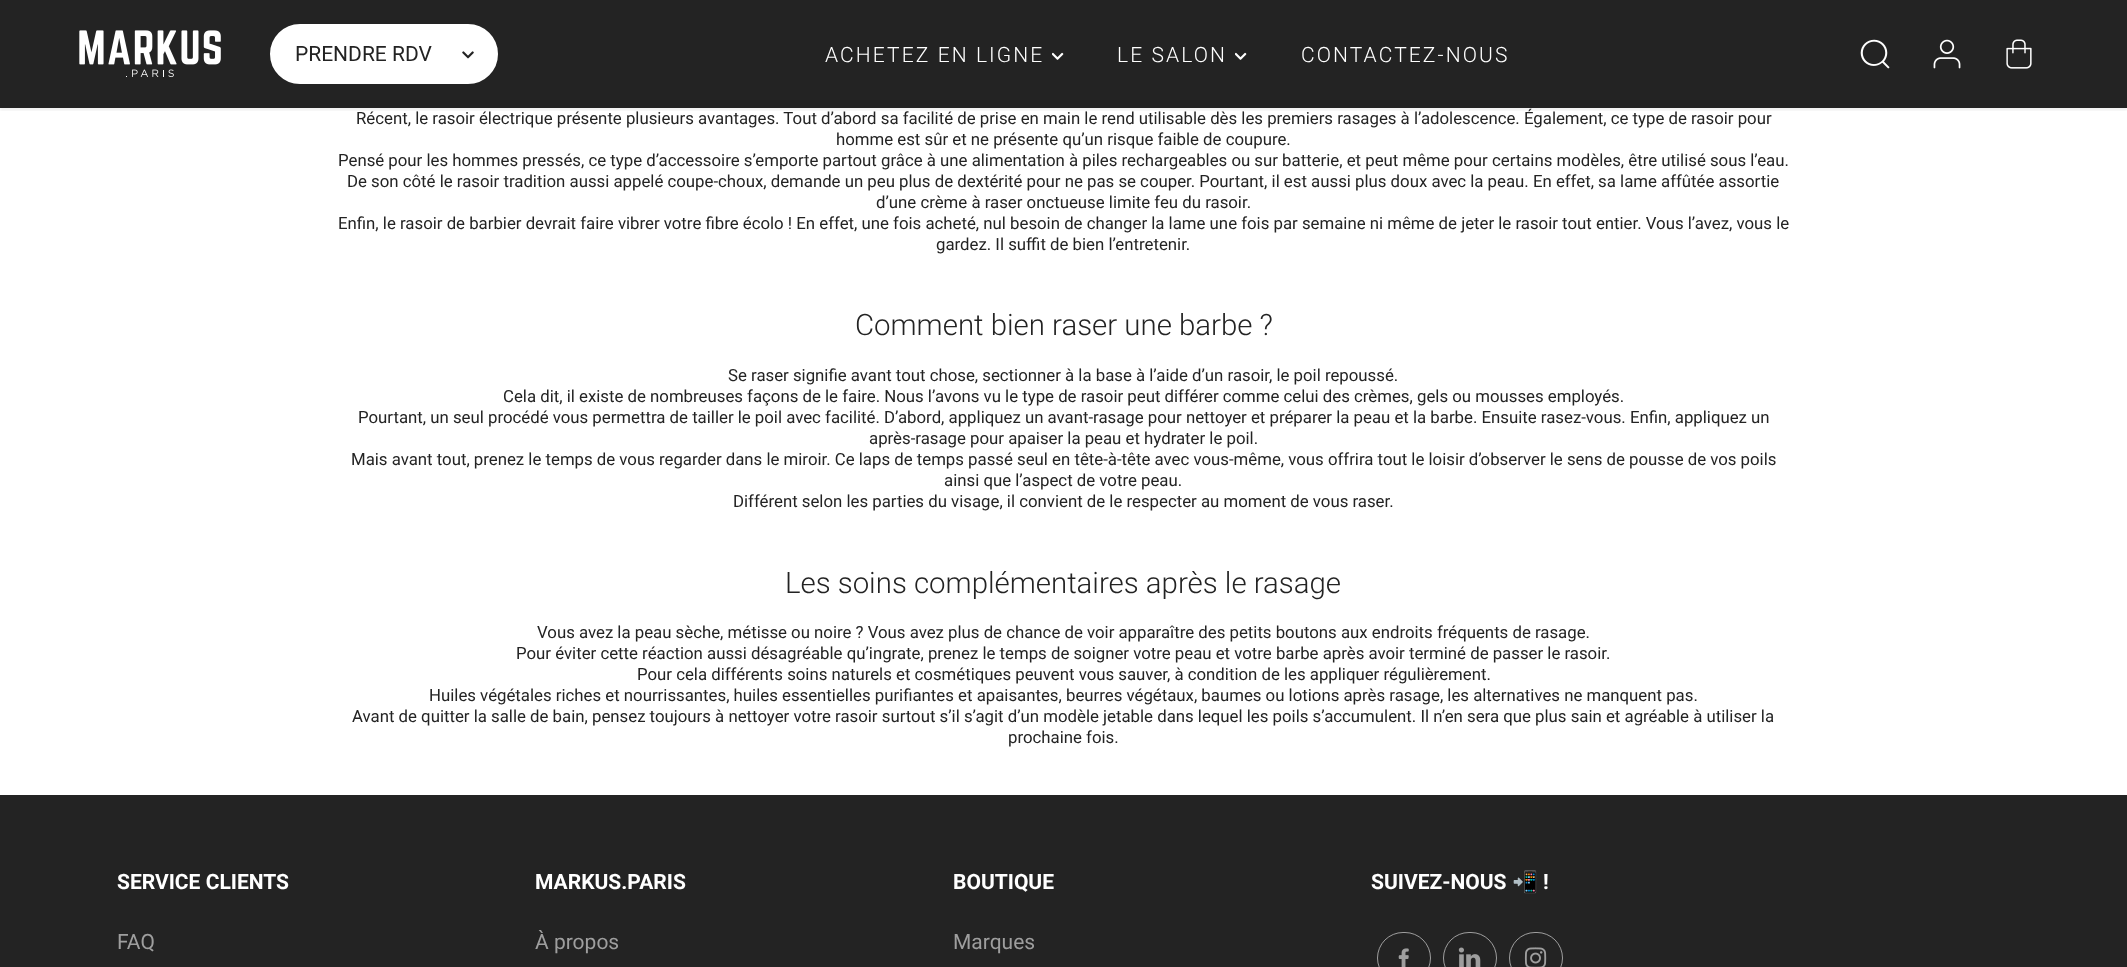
<!DOCTYPE html>
<meta charset="utf-8">
<style>body { margin: 0 } canvas { display: block }</style>
<canvas id="canvas" width="2127" height="967"></canvas>
<img id="img1" src="img_01.png" hidden>
<img id="img2" src="img_02.png" hidden>
<img id="img3" src="img_03.png" hidden>
<img id="img4" src="img_04.png" hidden>
<img id="img5" src="img_05.png" hidden>
<img id="img6" src="img_06.png" hidden>
<img id="img7" src="img_07.png" hidden>
<img id="img8" src="img_08.png" hidden>
<img id="img9" src="img_09.png" hidden>
<script>
window.onload = function () {
	const canvas = document.getElementById("canvas");
	const ctx = canvas.getContext("2d");
	ctx.miterLimit = 4;
	ctx.fontKerning = "normal";
	function txt(s, x, y) {
		ctx.fillText(s, x, y);
	}
	function fill(x, y, w, h) {
		ctx.fillRect(x, y, w, h);
	}
	function img(id, x, y, w, h) {
		ctx.drawImage(document.getElementById(id), x, y, w, h);
	}

	ctx.fillStyle = "#FFFFFF";
	fill(0, 0, 2127, 967);
	ctx.fillStyle = "#232323";
	fill(0, 0, 2127, 108);
	ctx.save();
	ctx.beginPath();
	ctx.rect(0, 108, 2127, 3);
	ctx.clip();
	ctx.fillStyle = "rgba(0, 0, 0, 0.05)";
	ctx.filter = "blur(1.5px)";
	ctx.beginPath();
	ctx.rect(0, 3, 2127, 108);
	ctx.fill();
	ctx.filter = "none";
	ctx.restore();
	img("img1", 79, 30, 142, 48);
	ctx.fillStyle = "#FFFFFF";
	ctx.beginPath();
	ctx.roundRect(271, 25, 226, 58, 29);
	ctx.fill();
	ctx.strokeStyle = "#FFFFFF";
	ctx.lineWidth = 2;
	ctx.stroke();
	img("img2", 462, 51, 12, 8);
	img("img3", 1052, 52, 12, 8);
	img("img3", 1235, 52, 12, 8);
	img("img4", 1860, 39, 30, 30);
	img("img5", 1933, 39, 28, 30);
	img("img6", 2006, 39, 26, 30);
	ctx.fillStyle = "#232323";
	fill(0, 795, 2127, 172);
	ctx.beginPath();
	ctx.roundRect(1377.5, 932.5, 53, 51, 25.5);
	ctx.strokeStyle = "#9E9E9E";
	ctx.lineWidth = 1;
	ctx.stroke();
	img("img7", 1398, 948, 11, 19);
	ctx.beginPath();
	ctx.roundRect(1443.5, 932.5, 53, 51, 25.5);
	ctx.stroke();
	img("img8", 1458, 947, 23, 20);
	ctx.beginPath();
	ctx.roundRect(1509.5, 932.5, 53, 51, 25.5);
	ctx.stroke();
	img("img9", 1524, 947, 23, 20);
	ctx.font = "21px Roboto";
	txt("PRENDRE RDV", 295, 61);
	ctx.letterSpacing = "2.1px";
	ctx.font = "300 21px Roboto";
	ctx.fillStyle = "#FFFFFF";
	txt("ACHETEZ EN LIGNE", 825, 62);
	txt("LE SALON", 1117, 62);
	txt("CONTACTEZ-NOUS", 1301, 62);
	ctx.letterSpacing = "0px";
	ctx.font = "16.8px Roboto";
	ctx.fillStyle = "#232323";
	txt("Récent, le rasoir électrique présente plusieurs avantages. Tout d’abord sa facilité de prise en main le rend utilisable dès les premiers rasages à l’adolescence. Également, ce type de rasoir pour", 356, 124);
	txt("homme est sûr et ne présente qu’un risque faible de coupure.", 836, 145);
	txt("Pensé pour les hommes pressés, ce type d’accessoire s’emporte partout grâce à une alimentation à piles rechargeables ou sur batterie, et peut même pour certains modèles, être utilisé sous l’eau.", 338, 166);
	txt("De son côté le rasoir tradition aussi appelé coupe-choux, demande un peu plus de dextérité pour ne pas se couper. Pourtant, il est aussi plus doux avec la peau. En effet, sa lame affûtée assortie", 347, 187);
	txt("d’une crème à raser onctueuse limite feu du rasoir.", 876, 208);
	txt("Enfin, le rasoir de barbier devrait faire vibrer votre fibre écolo ! En effet, une fois acheté, nul besoin de changer la lame une fois par semaine ni même de jeter le rasoir tout entier. Vous l’avez, vous le", 338, 229);
	txt("gardez. Il suffit de bien l’entretenir.", 936, 250);
	ctx.font = "300 29.4px Roboto";
	txt("Comment bien raser une barbe ?", 855, 335);
	ctx.font = "16.8px Roboto";
	txt("Se raser signifie avant tout chose, sectionner à la base à l’aide d’un rasoir, le poil repoussé.", 728, 381);
	txt("Cela dit, il existe de nombreuses façons de le faire. Nous l’avons vu le type de rasoir peut différer comme celui des crèmes, gels ou mousses employés.", 503, 402);
	txt("Pourtant, un seul procédé vous permettra de tailler le poil avec facilité. D’abord, appliquez un avant-rasage pour nettoyer et préparer la peau et la barbe. Ensuite rasez-vous. Enfin, appliquez un", 358, 423);
	txt("après-rasage pour apaiser la peau et hydrater le poil.", 869, 444);
	txt("Mais avant tout, prenez le temps de vous regarder dans le miroir. Ce laps de temps passé seul en tête-à-tête avec vous-même, vous offrira tout le loisir d’observer le sens de pousse de vos poils", 351, 465);
	txt("ainsi que l’aspect de votre peau.", 944, 486);
	txt("Différent selon les parties du visage, il convient de le respecter au moment de vous raser.", 733, 507);
	ctx.font = "300 29.4px Roboto";
	txt("Les soins complémentaires après le rasage", 785, 593);
	ctx.font = "16.8px Roboto";
	txt("Vous avez la peau sèche, métisse ou noire ? Vous avez plus de chance de voir apparaître des petits boutons aux endroits fréquents de rasage.", 537, 638);
	txt("Pour éviter cette réaction aussi désagréable qu’ingrate, prenez le temps de soigner votre peau et votre barbe après avoir terminé de passer le rasoir.", 516, 659);
	txt("Pour cela différents soins naturels et cosmétiques peuvent vous sauver, à condition de les appliquer régulièrement.", 637, 680);
	txt("Huiles végétales riches et nourrissantes, huiles essentielles purifiantes et apaisantes, beurres végétaux, baumes ou lotions après rasage, les alternatives ne manquent pas.", 429, 701);
	txt("Avant de quitter la salle de bain, pensez toujours à nettoyer votre rasoir surtout s’il s’agit d’un modèle jetable dans lequel les poils s’accumulent. Il n’en sera que plus sain et agréable à utiliser la", 352, 722);
	txt("prochaine fois.", 1008, 743);
	ctx.font = "bold 21px Roboto";
	ctx.fillStyle = "#FFFFFF";
	txt("SERVICE CLIENTS", 117, 889);
	ctx.font = "21px Roboto";
	ctx.fillStyle = "#9E9E9E";
	txt("FAQ", 117, 949);
	ctx.font = "bold 21px Roboto";
	ctx.fillStyle = "#FFFFFF";
	txt("MARKUS.PARIS", 535, 889);
	ctx.font = "21px Roboto";
	ctx.fillStyle = "#9E9E9E";
	txt("À propos", 535, 949);
	ctx.font = "bold 21px Roboto";
	ctx.fillStyle = "#FFFFFF";
	txt("BOUTIQUE", 953, 889);
	ctx.font = "21px Roboto";
	ctx.fillStyle = "#9E9E9E";
	txt("Marques", 953, 949);
	ctx.font = "bold 21px Roboto";
	ctx.fillStyle = "#FFFFFF";
	txt("SUIVEZ-NOUS", 1371, 889);
	ctx.font = "bold 21px Noto Color Emoji";
	txt("📲", 1512, 889);
	ctx.font = "bold 21px Roboto";
	txt("!", 1543, 889);
};
</script>
